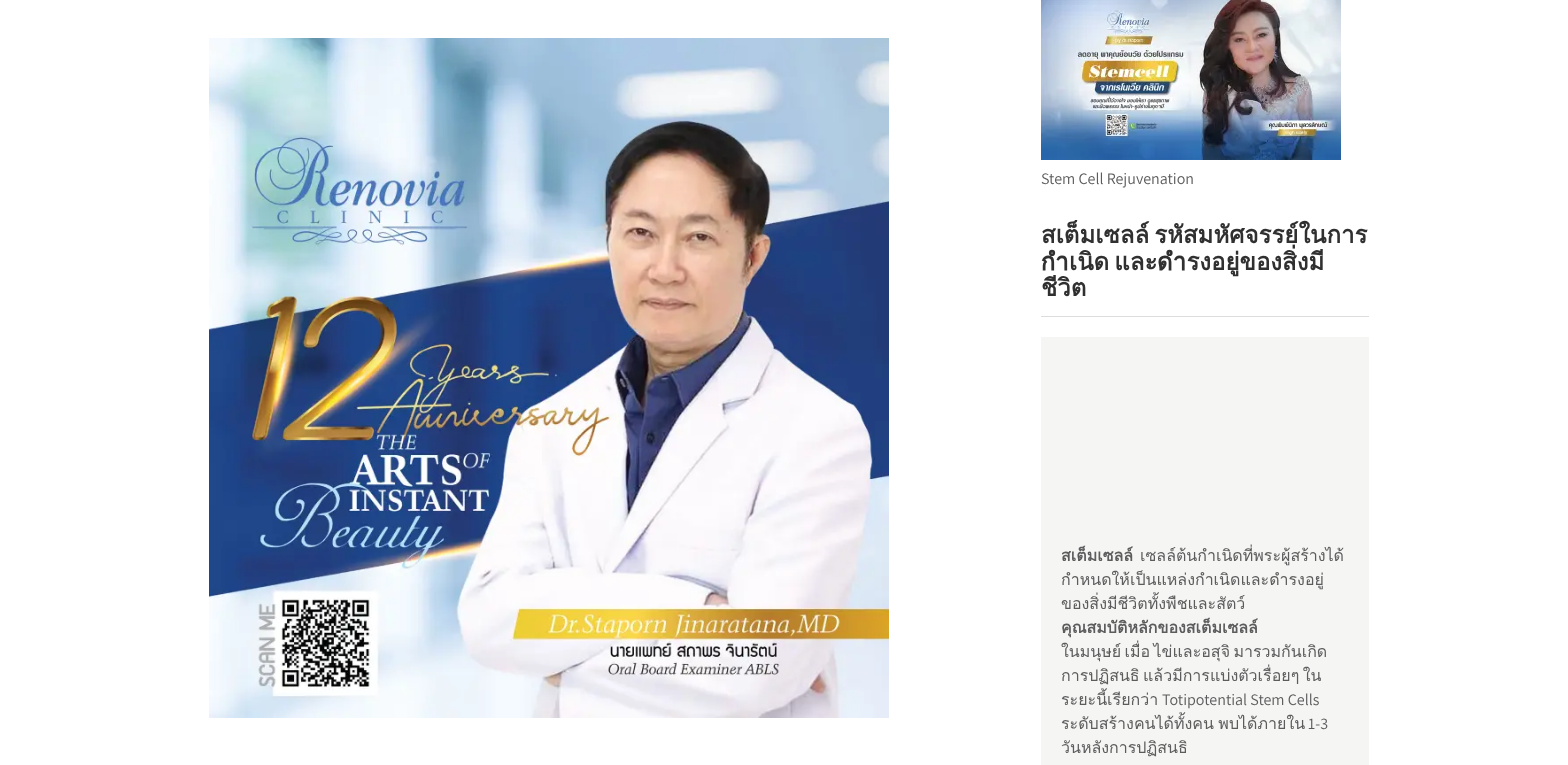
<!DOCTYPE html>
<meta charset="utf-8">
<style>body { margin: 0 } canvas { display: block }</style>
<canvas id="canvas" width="1568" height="765"></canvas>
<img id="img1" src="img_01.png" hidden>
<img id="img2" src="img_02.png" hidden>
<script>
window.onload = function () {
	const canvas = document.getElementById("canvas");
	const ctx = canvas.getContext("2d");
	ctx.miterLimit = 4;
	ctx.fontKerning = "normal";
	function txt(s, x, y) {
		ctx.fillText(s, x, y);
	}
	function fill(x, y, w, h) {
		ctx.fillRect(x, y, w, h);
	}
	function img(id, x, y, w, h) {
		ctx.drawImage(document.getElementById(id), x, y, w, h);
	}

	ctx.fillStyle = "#FFFFFF";
	fill(0, 0, 1568, 765);
	img("img1", 209, 38, 680, 680);
	img("img2", 1041, 0, 300, 160);
	ctx.fillStyle = "#DDDDDD";
	fill(1041, 316, 328, 1);
	ctx.fillStyle = "#F5F5F4";
	fill(1041, 337, 328, 428);
	ctx.font = "16px Assistant";
	ctx.fillStyle = "#5C5C5C";
	txt("Stem Cell Rejuvenation", 1041, 184);
	ctx.wordSpacing = "-3px";
	ctx.font = "bold 24px Loma";
	ctx.fillStyle = "#303030";
	txt("สเต็มเซลล์ รหัสมหัศจรรย์ในการ", 1041, 243);
	txt("กำเนิด และดำรงอยู่ของสิ่งมี", 1041, 270);
	ctx.wordSpacing = "0px";
	txt("ชีวิต", 1041, 296);
	ctx.font = "bold 16px Loma";
	ctx.fillStyle = "#5C5C5C";
	txt("สเต็มเซลล์", 1061, 561);
	ctx.font = "16px Loma";
	txt("เซลล์ต้นกำเนิดที่พระผู้สร้างได้", 1140, 561);
	txt("กำหนดให้เป็นแหล่งกำเนิดและดำรงอยู่", 1061, 585);
	txt("ของสิ่งมีชีวิตทั้งพืชและสัตว์", 1061, 609);
	ctx.font = "bold 16px Loma";
	txt("คุณสมบัติหลักของสเต็มเซลล์", 1061, 633);
	ctx.wordSpacing = "-2px";
	ctx.font = "16px Loma";
	txt("ในมนุษย์ เมื่อ ไข่และอสุจิ มารวมกันเกิด", 1061, 657);
	txt("การปฏิสนธิ แล้วมีการแบ่งตัวเรื่อยๆ ใน", 1061, 681);
	ctx.wordSpacing = "0px";
	txt("ระยะนี้เรียกว่า", 1061, 705);
	ctx.font = "16px Assistant";
	txt("Totipotential Stem Cells", 1162, 705);
	ctx.wordSpacing = "-1px";
	ctx.font = "16px Loma";
	txt("ระดับสร้างคนได้ทั้งคน พบได้ภายใน", 1061, 729);
	ctx.wordSpacing = "0px";
	ctx.font = "16px Assistant";
	txt("1-3", 1308, 729);
	ctx.font = "16px Loma";
	txt("วันหลังการปฏิสนธิ", 1061, 753);
};
</script>
